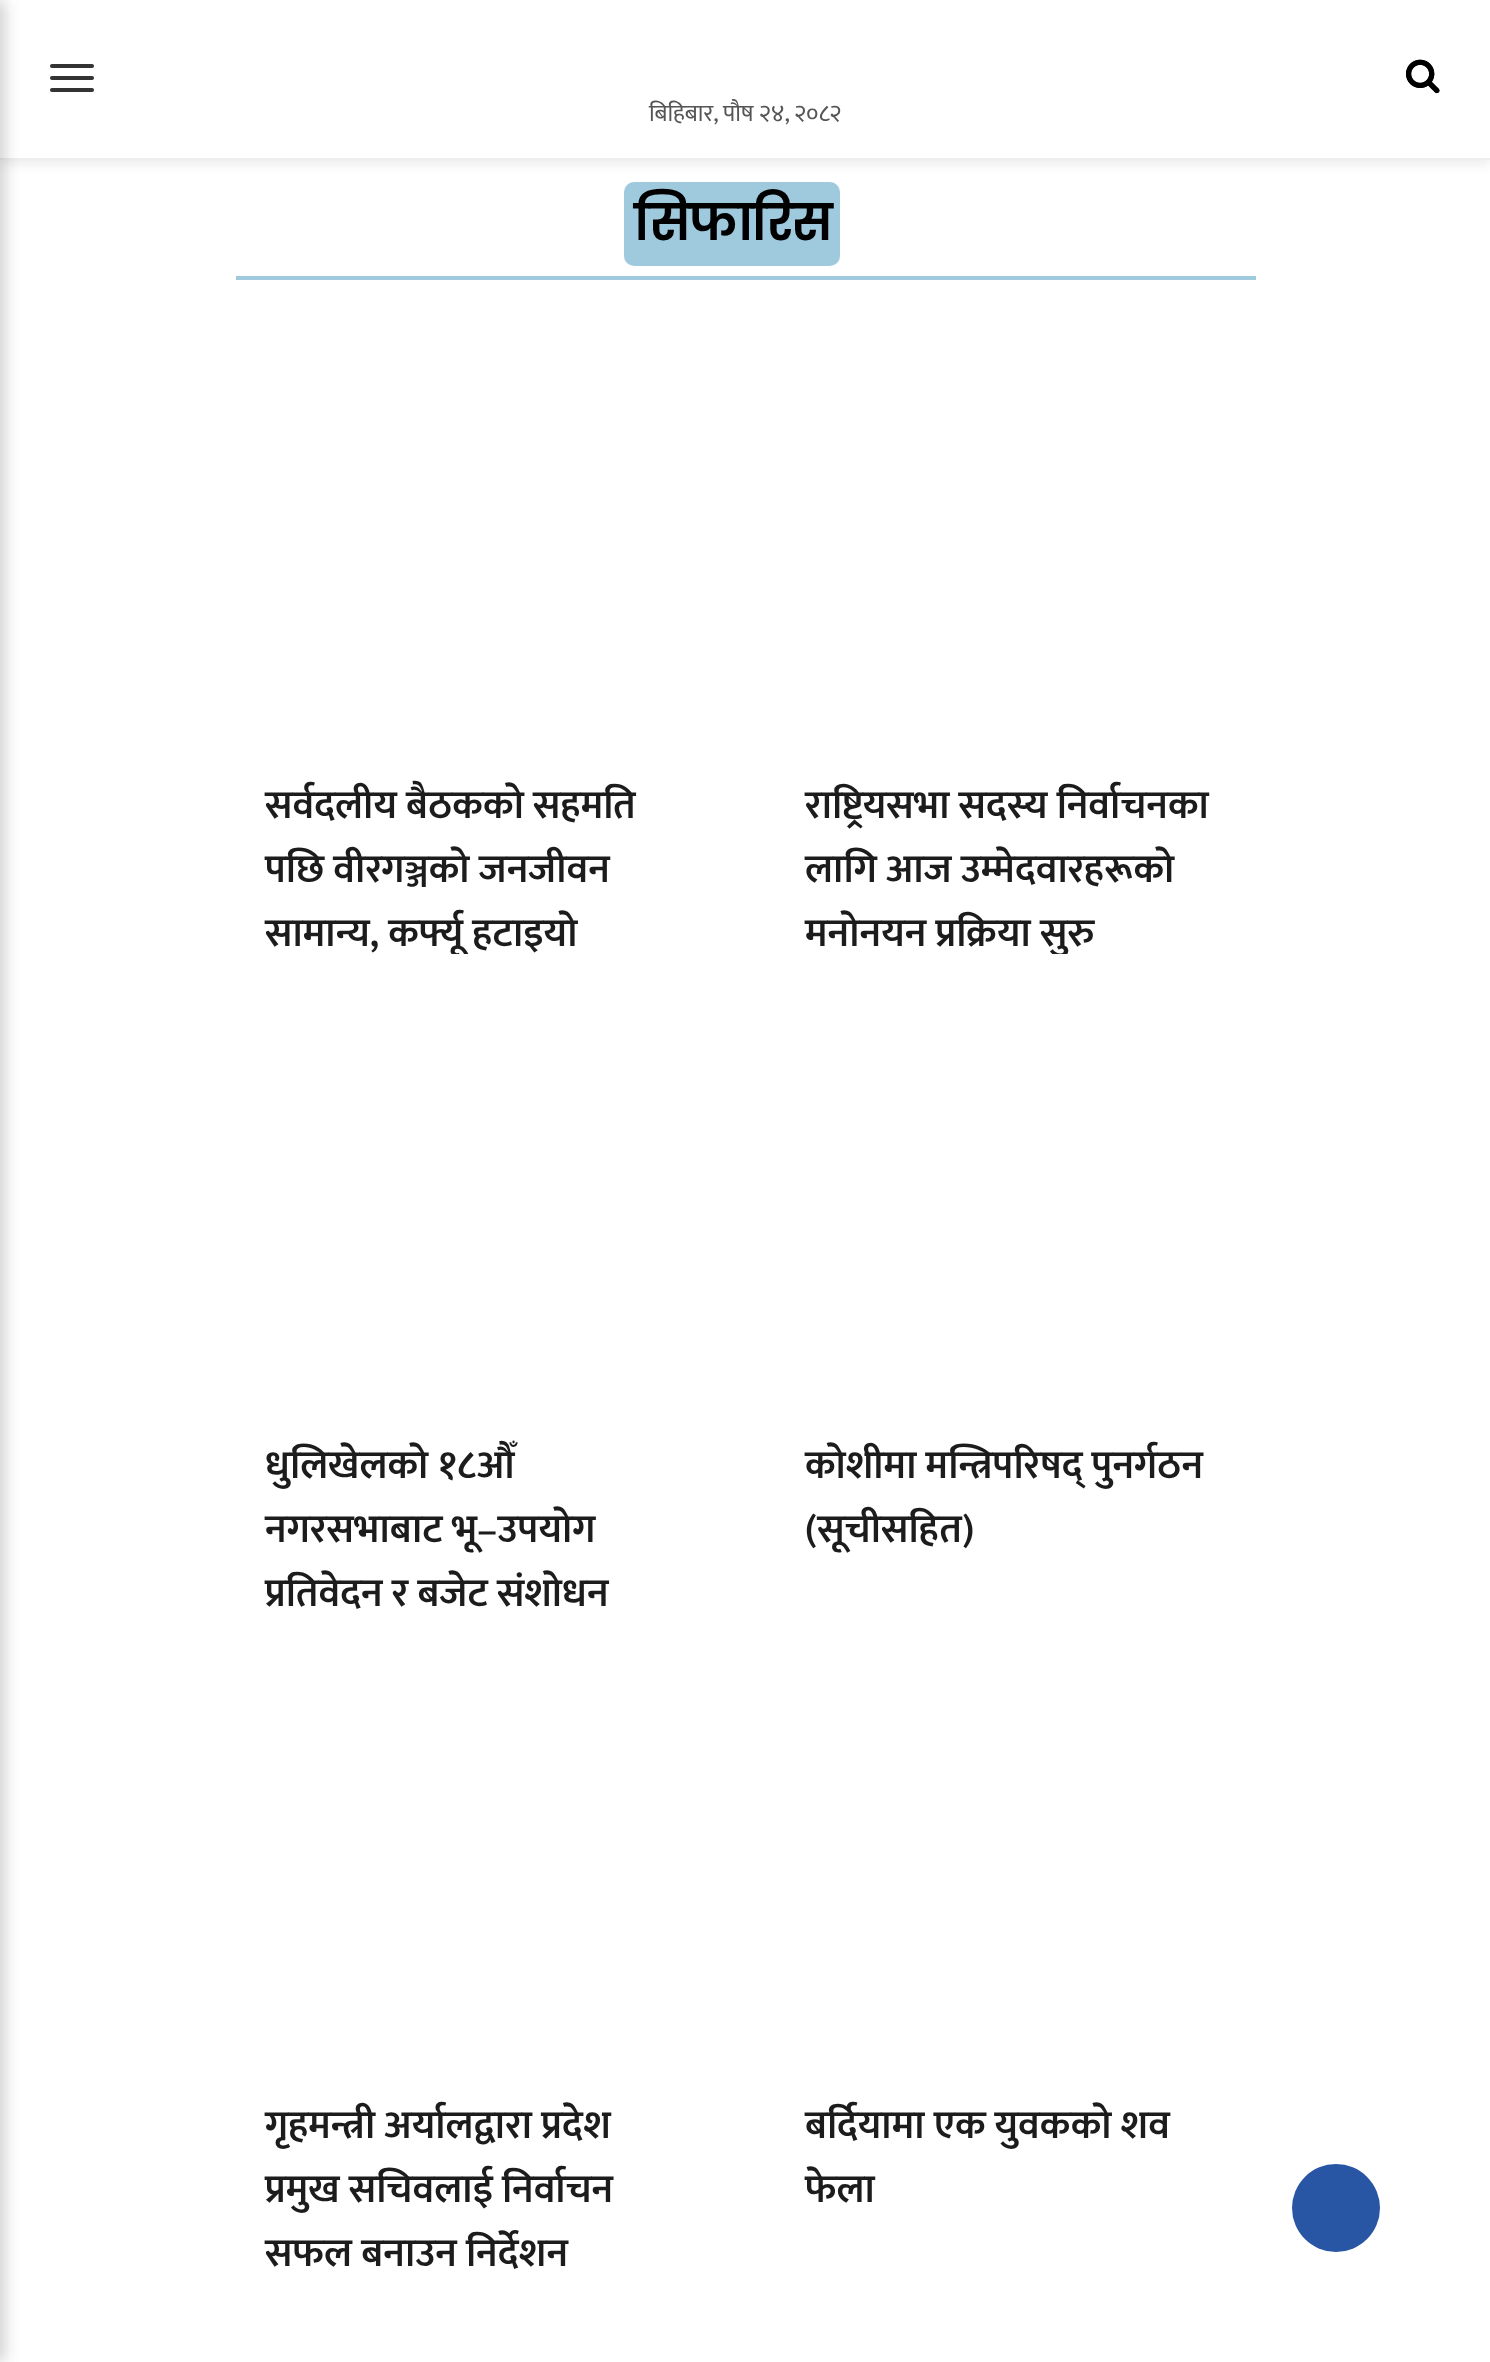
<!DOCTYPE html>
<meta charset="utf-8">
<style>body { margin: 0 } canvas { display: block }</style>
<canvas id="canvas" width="1490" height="2362"></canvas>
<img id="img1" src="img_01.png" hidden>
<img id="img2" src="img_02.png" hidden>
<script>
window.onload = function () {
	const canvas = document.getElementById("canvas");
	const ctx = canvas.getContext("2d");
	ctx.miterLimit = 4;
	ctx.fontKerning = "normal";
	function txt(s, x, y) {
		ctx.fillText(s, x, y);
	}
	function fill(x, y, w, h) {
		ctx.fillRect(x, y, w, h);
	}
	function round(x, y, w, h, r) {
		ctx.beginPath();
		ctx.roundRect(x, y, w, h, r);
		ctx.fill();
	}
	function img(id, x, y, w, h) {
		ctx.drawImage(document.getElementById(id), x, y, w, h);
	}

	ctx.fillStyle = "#FFFFFF";
	fill(0, 0, 1490, 2362);
	ctx.fillStyle = "#9FCADE";
	round(624, 182, 216, 84, 10);
	ctx.fillStyle = "rgba(0, 0, 0, 0.08)";
	ctx.filter = "blur(6px)";
	ctx.beginPath();
	ctx.rect(0, 4, 1490, 160);
	ctx.fill();
	ctx.filter = "none";
	ctx.fillStyle = "#FFFFFF";
	fill(0, 0, 1490, 158);
	ctx.fillStyle = "#EEEEEE";
	fill(0, 158, 1490, 2);
	ctx.fillStyle = "rgba(0, 0, 0, 0.1)";
	ctx.filter = "blur(8px)";
	ctx.beginPath();
	ctx.rect(-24, 0, 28, 2362);
	ctx.fill();
	ctx.filter = "none";
	ctx.filter = "blur(8px)";
	ctx.beginPath();
	ctx.rect(-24, 0, 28, 2362);
	ctx.fill();
	ctx.filter = "none";
	img("img1", 1406, 59, 34, 35);
	ctx.fillStyle = "#333333";
	round(50, 64, 44, 4, 2);
	round(50, 76, 44, 4, 2);
	round(50, 88, 44, 4, 2);
	img("img2", 1406, 59, 34, 35);
	ctx.fillStyle = "#9FCADE";
	fill(236, 276, 1020, 4);
	ctx.fillStyle = "#2956A4";
	ctx.beginPath();
	ctx.arc(1336, 2208, 44, 0, Math.PI * 2);
	ctx.fill();
	ctx.font = "24px Ek Mukta";
	ctx.fillStyle = "#555555";
	txt("बिहिबार,", 649, 121);
	txt("पौष २४,", 723, 121);
	txt("२०८२", 794, 121);
	ctx.letterSpacing = "-2px";
	ctx.font = "600 50px Poppins";
	ctx.fillStyle = "#000000";
	txt("सिफारिस", 634, 240);
	ctx.letterSpacing = "0px";
	ctx.font = "600 40px Ek Mukta";
	ctx.fillStyle = "#1C1C1C";
	txt("सर्वदलीय बैठकको सहमति", 265, 818);
	txt("पछि वीरगञ्जको जनजीवन", 265, 882);
	ctx.save();
	ctx.beginPath();
	ctx.rect(236, 334, 480, 620);
	ctx.clip();
	txt("सामान्य, कर्फ्यू हटाइयो", 265, 946);
	ctx.restore();
	txt("राष्ट्रियसभा सदस्य निर्वाचनका", 805, 818);
	txt("लागि आज उम्मेदवारहरूको", 805, 882);
	ctx.save();
	ctx.beginPath();
	ctx.rect(776, 334, 480, 620);
	ctx.clip();
	txt("मनोनयन प्रक्रिया सुरु", 805, 946);
	ctx.restore();
	txt("धुलिखेलको १८औँ", 265, 1478);
	txt("नगरसभाबाट भू–उपयोग", 265, 1542);
	txt("प्रतिवेदन र बजेट संशोधन", 265, 1606);
	txt("कोशीमा मन्त्रिपरिषद् पुनर्गठन", 805, 1478);
	txt("(सूचीसहित)", 805, 1542);
	txt("गृहमन्त्री अर्यालद्वारा प्रदेश", 265, 2138);
	txt("प्रमुख सचिवलाई निर्वाचन", 265, 2202);
	txt("सफल बनाउन निर्देशन", 265, 2266);
	txt("बर्दियामा एक युवकको शव", 805, 2138);
	txt("फेला", 805, 2202);
};
</script>
